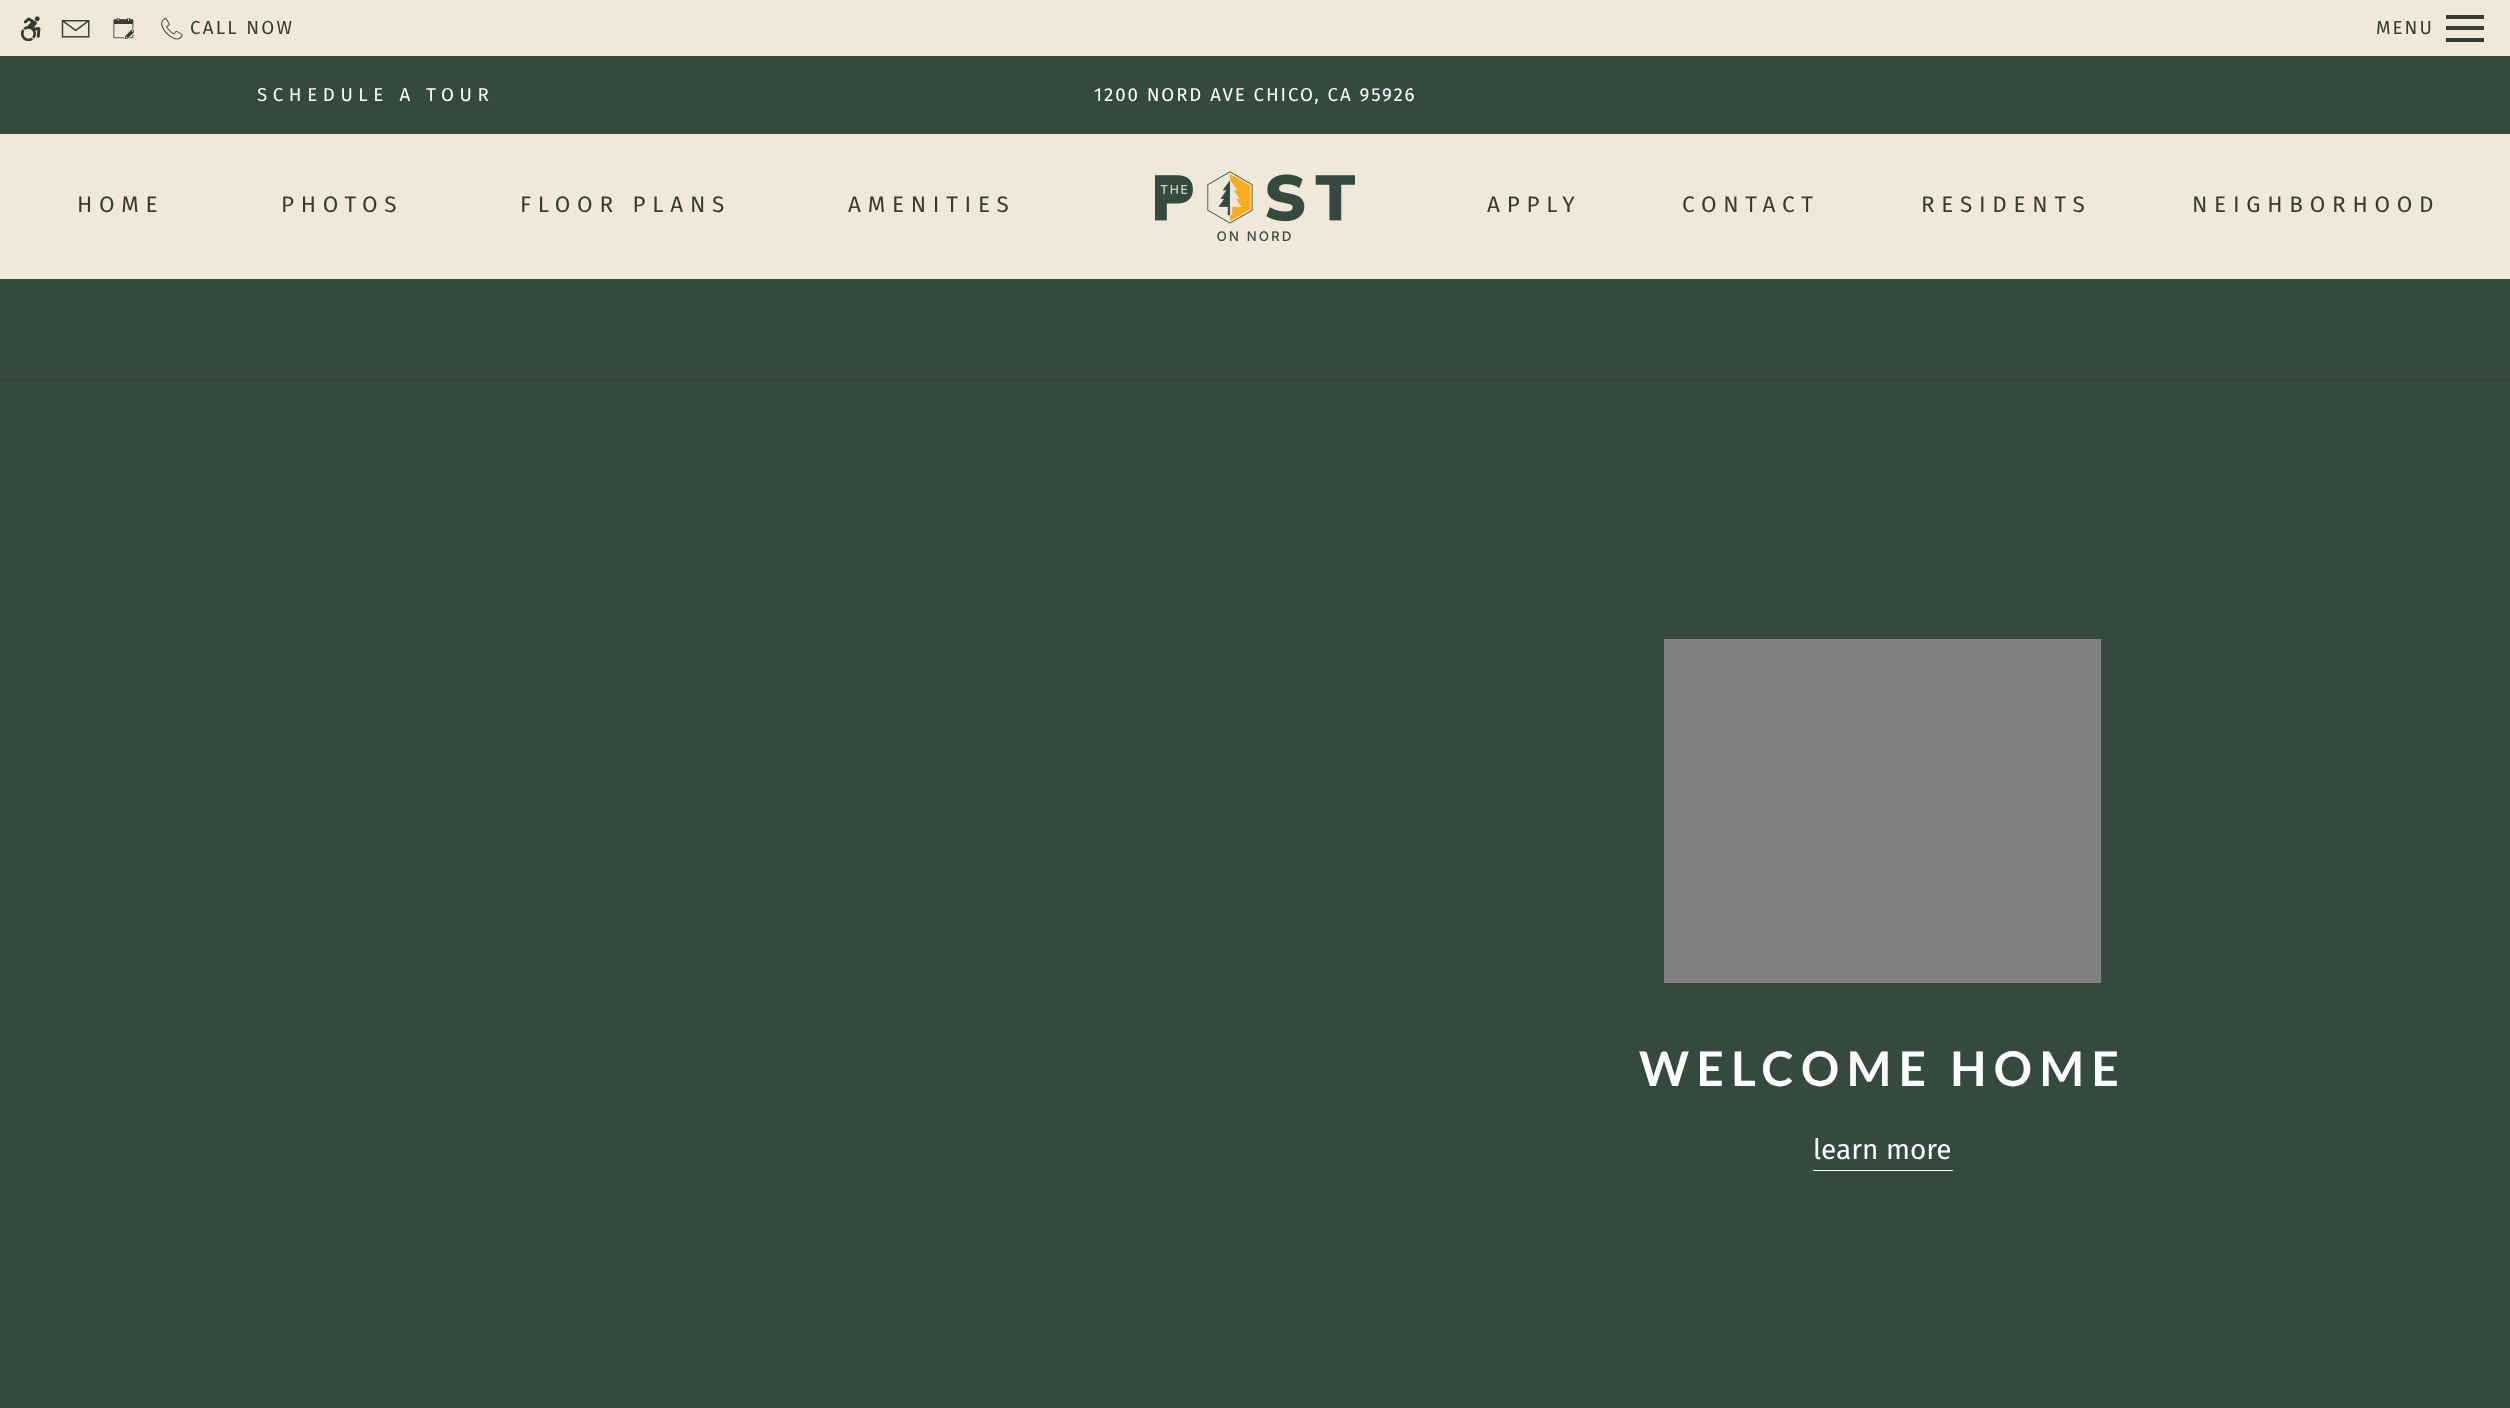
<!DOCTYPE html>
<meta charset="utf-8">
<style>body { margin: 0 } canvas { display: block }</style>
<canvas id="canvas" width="2510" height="1408"></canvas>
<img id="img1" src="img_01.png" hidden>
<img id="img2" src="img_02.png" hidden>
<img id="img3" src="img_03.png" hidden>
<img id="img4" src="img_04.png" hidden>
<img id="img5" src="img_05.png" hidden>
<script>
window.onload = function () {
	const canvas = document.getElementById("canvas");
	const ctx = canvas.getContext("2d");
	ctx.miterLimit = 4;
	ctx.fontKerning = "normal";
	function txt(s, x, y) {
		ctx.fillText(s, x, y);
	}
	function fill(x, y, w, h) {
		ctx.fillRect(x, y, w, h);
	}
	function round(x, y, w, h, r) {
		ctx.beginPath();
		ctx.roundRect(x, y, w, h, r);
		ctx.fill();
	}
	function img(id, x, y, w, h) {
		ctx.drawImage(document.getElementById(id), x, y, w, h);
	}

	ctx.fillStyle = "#F0E9D9";
	fill(0, 0, 2510, 1408);
	img("img1", 20, 16, 21, 25);
	img("img2", 61, 20, 29, 18);
	img("img3", 113, 18, 21, 21);
	img("img4", 161, 18, 22, 22);
	ctx.fillStyle = "#363C32";
	fill(2446, 15, 38, 4);
	fill(2446, 26, 38, 4);
	fill(2446, 38, 38, 4);
	ctx.fillStyle = "#354A3E";
	fill(0, 56, 2510, 78);
	img("img5", 1155, 171, 200, 70);
	fill(0, 279, 2510, 1129);
	ctx.fillStyle = "#363C32";
	fill(0, 379, 2510, 1);
	ctx.fillStyle = "#808080";
	fill(1664, 639, 437, 344);
	ctx.fillStyle = "#FFFFFF";
	round(1813, 1170, 140, 1, 0.5);
	ctx.letterSpacing = "2.25px";
	ctx.font = "18.75px Fira Sans";
	ctx.fillStyle = "#363C32";
	txt("CALL NOW", 190, 34);
	ctx.letterSpacing = "2px";
	txt("MENU", 2376, 34);
	ctx.letterSpacing = "5.6px";
	ctx.font = "18.7px Fira Sans";
	ctx.fillStyle = "#FFFFFF";
	txt("SCHEDULE A TOUR", 257, 101);
	ctx.letterSpacing = "1.9px";
	txt("1200 NORD AVE CHICO, CA 95926", 1094, 101);
	ctx.letterSpacing = "6.75px";
	ctx.font = "22.5px Fira Sans";
	ctx.fillStyle = "#363C32";
	txt("HOME", 77, 212);
	txt("PHOTOS", 281, 212);
	txt("FLOOR PLANS", 520, 212);
	txt("AMENITIES", 848, 212);
	txt("APPLY", 1487, 212);
	txt("CONTACT", 1682, 212);
	txt("RESIDENTS", 1921, 212);
	txt("NEIGHBORHOOD", 2192, 212);
	ctx.letterSpacing = "7.5px";
	ctx.font = "bold 47.75px Lato";
	ctx.fillStyle = "#FFFFFF";
	txt("WELCOME HOME", 1639, 1086);
	ctx.letterSpacing = "0px";
	ctx.font = "28px Fira Sans";
	txt("learn more", 1813, 1159);
};
</script>
